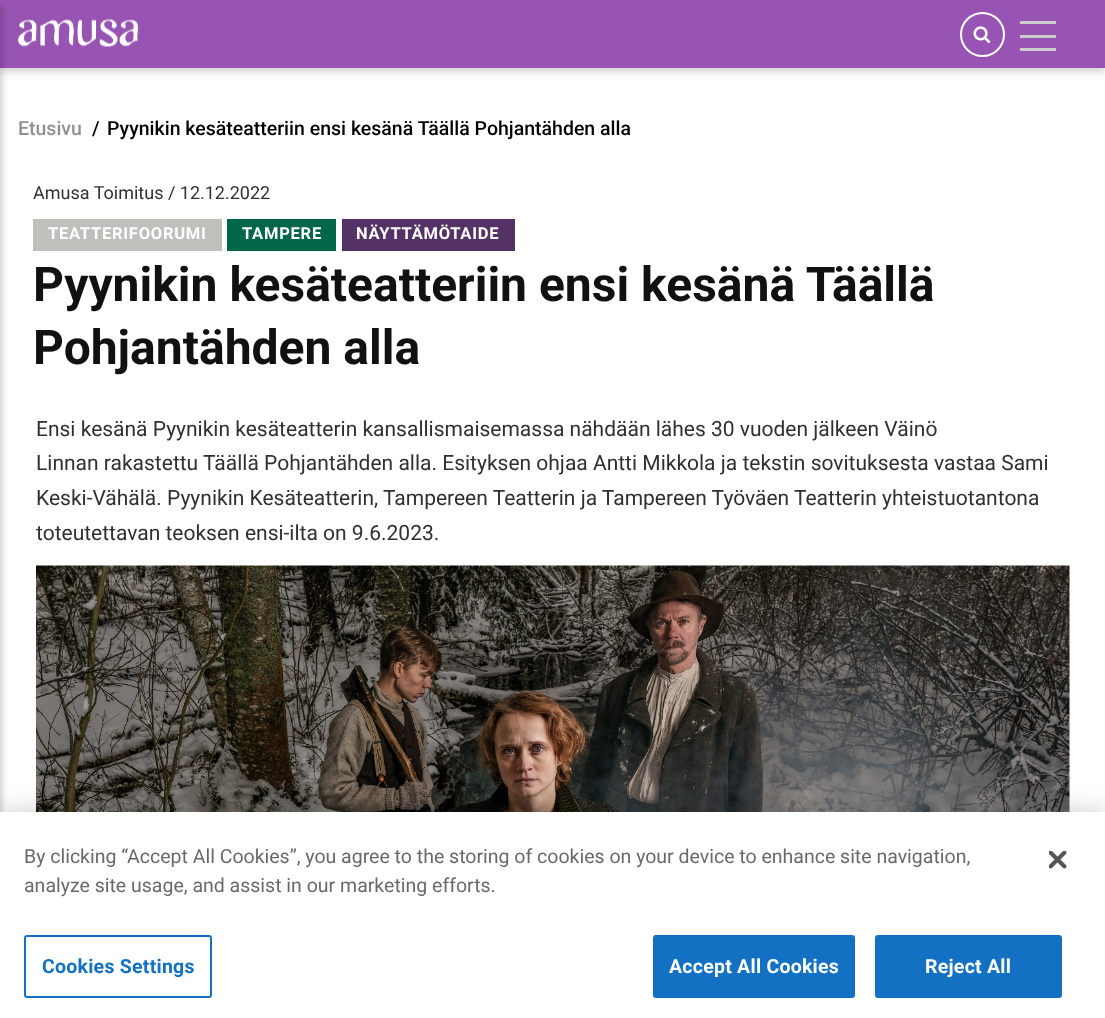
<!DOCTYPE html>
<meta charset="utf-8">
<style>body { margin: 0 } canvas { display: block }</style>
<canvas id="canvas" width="1105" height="1018"></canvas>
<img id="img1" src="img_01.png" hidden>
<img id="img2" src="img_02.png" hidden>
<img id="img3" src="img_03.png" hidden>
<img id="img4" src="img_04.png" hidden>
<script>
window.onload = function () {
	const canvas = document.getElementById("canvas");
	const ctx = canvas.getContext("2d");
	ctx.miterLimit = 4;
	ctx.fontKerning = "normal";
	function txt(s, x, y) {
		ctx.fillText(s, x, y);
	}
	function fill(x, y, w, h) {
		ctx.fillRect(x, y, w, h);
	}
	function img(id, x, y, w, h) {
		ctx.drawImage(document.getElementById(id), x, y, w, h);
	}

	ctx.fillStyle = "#FFFFFF";
	fill(0, 0, 1105, 1018);
	ctx.fillStyle = "rgba(0, 0, 0, 0.2)";
	ctx.filter = "blur(4px)";
	ctx.beginPath();
	ctx.rect(0, 3, 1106, 68);
	ctx.fill();
	ctx.filter = "none";
	ctx.fillStyle = "#9854B3";
	fill(0, 0, 1105, 68);
	ctx.fillStyle = "rgba(0, 0, 0, 0.2)";
	ctx.filter = "blur(3px)";
	ctx.beginPath();
	ctx.rect(-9, 5, 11, 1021);
	ctx.fill();
	ctx.filter = "none";
	ctx.beginPath();
	ctx.arc(982.5, 34.5, 21.5, 0, Math.PI * 2);
	ctx.strokeStyle = "#FFFFFF";
	ctx.lineWidth = 2;
	ctx.stroke();
	img("img1", 973, 26, 18, 17);
	ctx.fillStyle = "#CCCCCC";
	fill(1020, 21, 36, 3);
	fill(1020, 35, 36, 3);
	fill(1020, 48, 36, 3);
	img("img2", 18, 19, 120, 28);
	ctx.fillStyle = "#BFC0BC";
	fill(33, 219, 189, 32);
	ctx.fillStyle = "#016748";
	fill(227, 219, 109, 32);
	ctx.fillStyle = "#553265";
	fill(342, 219, 173, 32);
	img("img3", 36, 565, 1034, 247);
	ctx.fillStyle = "rgba(0, 0, 0, 0.2)";
	ctx.filter = "blur(13.5px)";
	ctx.beginPath();
	ctx.rect(0, 812, 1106, 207);
	ctx.fill();
	ctx.filter = "none";
	ctx.fillStyle = "#FFFFFF";
	fill(0, 812, 1105, 206);
	ctx.beginPath();
	ctx.roundRect(25, 936, 186, 61, 2);
	ctx.strokeStyle = "#1371C3";
	ctx.stroke();
	ctx.fillStyle = "#1371C3";
	ctx.beginPath();
	ctx.roundRect(654, 936, 200, 61, 2);
	ctx.fill();
	ctx.stroke();
	ctx.beginPath();
	ctx.roundRect(876, 936, 185, 61, 2);
	ctx.fill();
	ctx.stroke();
	img("img4", 1049, 851, 18, 18);
	ctx.font = "500 19.5px Roboto";
	ctx.fillStyle = "#909090";
	txt("Etusivu", 18, 135);
	ctx.fillStyle = "#000000";
	txt("/", 92, 135);
	txt("Pyynikin kesäteatteriin ensi kesänä Täällä Pohjantähden alla", 107, 135);
	ctx.font = "18px Roboto";
	ctx.fillStyle = "#303030";
	txt("Amusa Toimitus / 12.12.2022", 33, 199);
	ctx.letterSpacing = "0.75px";
	ctx.font = "bold 16.5px Roboto";
	ctx.fillStyle = "#FFFFFF";
	txt("TEATTERIFOORUMI", 48, 239);
	txt("TAMPERE", 242, 239);
	txt("NÄYTTÄMÖTAIDE", 356, 239);
	ctx.letterSpacing = "0px";
	ctx.font = "bold 48px Roboto";
	ctx.fillStyle = "#111111";
	txt("Pyynikin kesäteatteriin ensi kesänä Täällä", 33, 301);
	txt("Pohjantähden alla", 33, 364);
	ctx.font = "21px Roboto";
	ctx.fillStyle = "#303030";
	txt("Ensi kesänä Pyynikin kesäteatterin kansallismaisemassa nähdään lähes 30 vuoden jälkeen Väinö", 36, 436);
	txt("Linnan rakastettu Täällä Pohjantähden alla. Esityksen ohjaa Antti Mikkola ja tekstin sovituksesta vastaa Sami", 36, 470);
	txt("Keski-Vähälä. Pyynikin Kesäteatterin, Tampereen Teatterin ja Tampereen Työväen Teatterin yhteistuotantona", 36, 505);
	txt("toteutettavan teoksen ensi-ilta on 9.6.2023.", 36, 540);
	ctx.font = "19.5px Roboto";
	ctx.fillStyle = "#696969";
	txt("By clicking “Accept All Cookies”, you agree to the storing of cookies on your device to enhance site navigation,", 24, 863);
	txt("analyze site usage, and assist in our marketing efforts.", 24, 892);
	ctx.letterSpacing = "0.25px";
	ctx.font = "bold 19.5px Roboto";
	ctx.fillStyle = "#1371C3";
	txt("Cookies Settings", 42, 973);
	ctx.fillStyle = "#FFFFFF";
	txt("Accept All Cookies", 669, 973);
	txt("Reject All", 925, 973);
};
</script>
